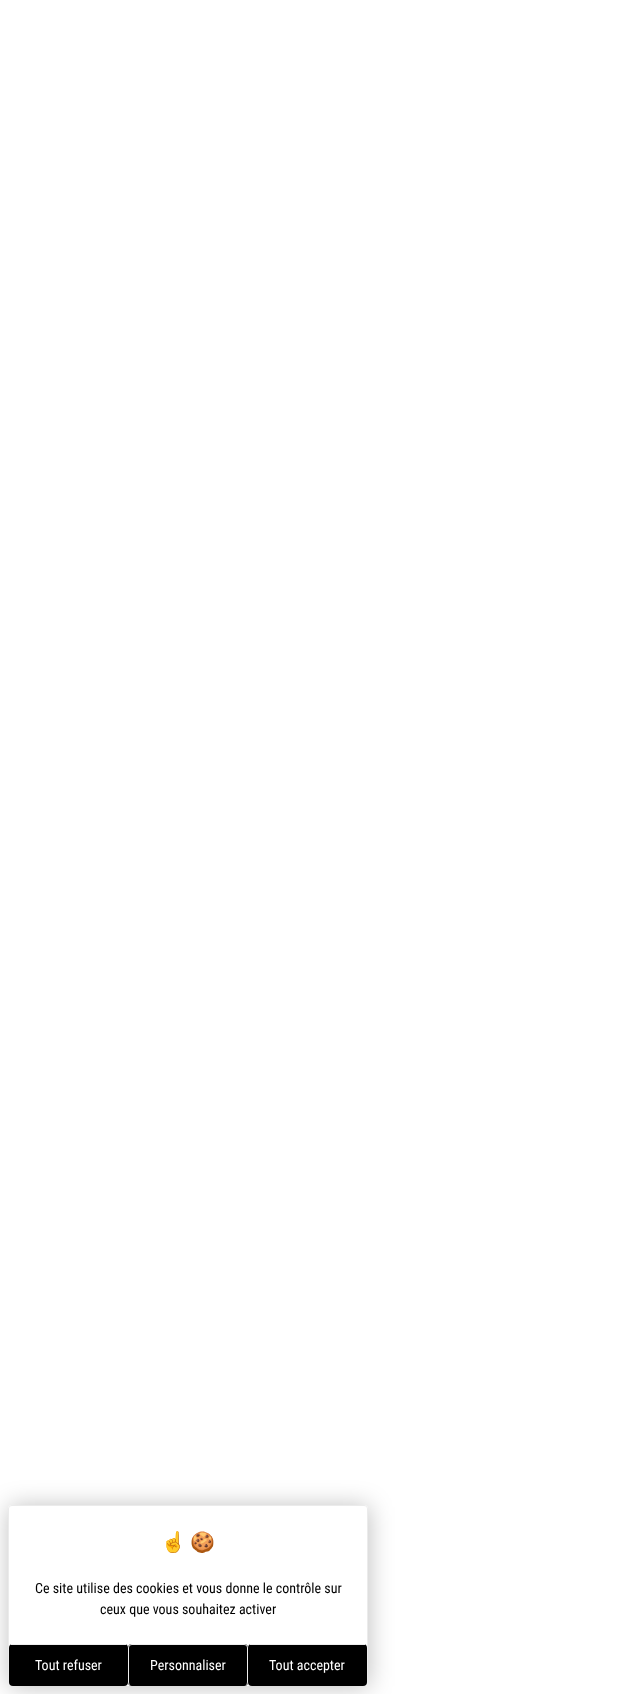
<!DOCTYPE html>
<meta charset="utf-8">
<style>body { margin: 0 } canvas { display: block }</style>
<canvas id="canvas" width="638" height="1694"></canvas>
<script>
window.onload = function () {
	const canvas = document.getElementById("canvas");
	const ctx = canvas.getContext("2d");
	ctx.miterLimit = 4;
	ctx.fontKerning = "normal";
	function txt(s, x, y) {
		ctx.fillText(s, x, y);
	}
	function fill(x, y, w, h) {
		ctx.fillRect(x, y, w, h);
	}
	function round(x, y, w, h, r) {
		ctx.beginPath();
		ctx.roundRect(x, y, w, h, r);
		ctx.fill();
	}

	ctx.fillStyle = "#FFFFFF";
	fill(0, 0, 638, 1694);
	ctx.fillStyle = "rgba(0, 0, 0, 0.25)";
	ctx.filter = "blur(12px)";
	ctx.beginPath();
	ctx.roundRect(9, 1506, 360, 181, 4);
	ctx.fill();
	ctx.filter = "none";
	ctx.fillStyle = "#FFFFFF";
	round(8, 1505, 360, 181, 4);
	ctx.fillStyle = "#EBEBEB";
	ctx.beginPath();
	ctx.moveTo(12, 1505);
	ctx.lineTo(364, 1505);
	ctx.bezierCurveTo(366, 1505, 368, 1507, 368, 1509);
	ctx.lineTo(368, 1682);
	ctx.bezierCurveTo(368, 1684, 366, 1686, 364, 1686);
	ctx.lineTo(12, 1686);
	ctx.bezierCurveTo(10, 1686, 8, 1684, 8, 1682);
	ctx.lineTo(8, 1509);
	ctx.bezierCurveTo(8, 1507, 10, 1505, 12, 1505);
	ctx.closePath();
	ctx.moveTo(12, 1506);
	ctx.lineTo(364, 1506);
	ctx.bezierCurveTo(366, 1506, 367, 1507, 367, 1509);
	ctx.lineTo(367, 1682);
	ctx.bezierCurveTo(367, 1684, 366, 1686, 364, 1686);
	ctx.lineTo(12, 1686);
	ctx.bezierCurveTo(10, 1686, 9, 1684, 9, 1682);
	ctx.lineTo(9, 1509);
	ctx.bezierCurveTo(9, 1507, 10, 1506, 12, 1506);
	ctx.closePath();
	ctx.fill("evenodd");
	ctx.fillStyle = "#000000";
	round(9, 1644, 119, 42, 4);
	ctx.fillStyle = "#EEEEEE";
	fill(11, 1644, 115, 1);
	ctx.fillStyle = "#000000";
	round(128, 1644, 120, 42, 4);
	ctx.fillStyle = "#EEEEEE";
	ctx.beginPath();
	ctx.moveTo(132, 1644);
	ctx.lineTo(244, 1644);
	ctx.bezierCurveTo(246, 1644, 248, 1646, 248, 1648);
	ctx.lineTo(248, 1682);
	ctx.bezierCurveTo(248, 1684, 246, 1686, 244, 1686);
	ctx.lineTo(132, 1686);
	ctx.bezierCurveTo(130, 1686, 128, 1684, 128, 1682);
	ctx.lineTo(128, 1648);
	ctx.bezierCurveTo(128, 1646, 130, 1644, 132, 1644);
	ctx.closePath();
	ctx.moveTo(132, 1645);
	ctx.lineTo(244, 1645);
	ctx.bezierCurveTo(246, 1645, 247, 1646, 247, 1648);
	ctx.lineTo(247, 1682);
	ctx.bezierCurveTo(247, 1684, 246, 1686, 244, 1686);
	ctx.lineTo(132, 1686);
	ctx.bezierCurveTo(130, 1686, 129, 1684, 129, 1682);
	ctx.lineTo(129, 1648);
	ctx.bezierCurveTo(129, 1646, 130, 1645, 132, 1645);
	ctx.closePath();
	ctx.fill("evenodd");
	ctx.fillStyle = "#000000";
	round(248, 1644, 119, 42, 4);
	ctx.fillStyle = "#EEEEEE";
	fill(250, 1644, 115, 1);
	ctx.font = "bold 20px Noto Color Emoji";
	ctx.fillStyle = "#000000";
	txt("☝️", 161, 1549);
	txt("🍪", 190, 1549);
	ctx.font = "14px Roboto Condensed";
	txt("Ce site utilise des cookies et vous donne le contrôle sur", 35, 1593);
	txt("ceux que vous souhaitez activer", 100, 1614);
	ctx.fillStyle = "#FFFFFF";
	txt("Tout refuser", 35, 1670);
	txt("Personnaliser", 150, 1670);
	txt("Tout accepter", 269, 1670);
};
</script>
